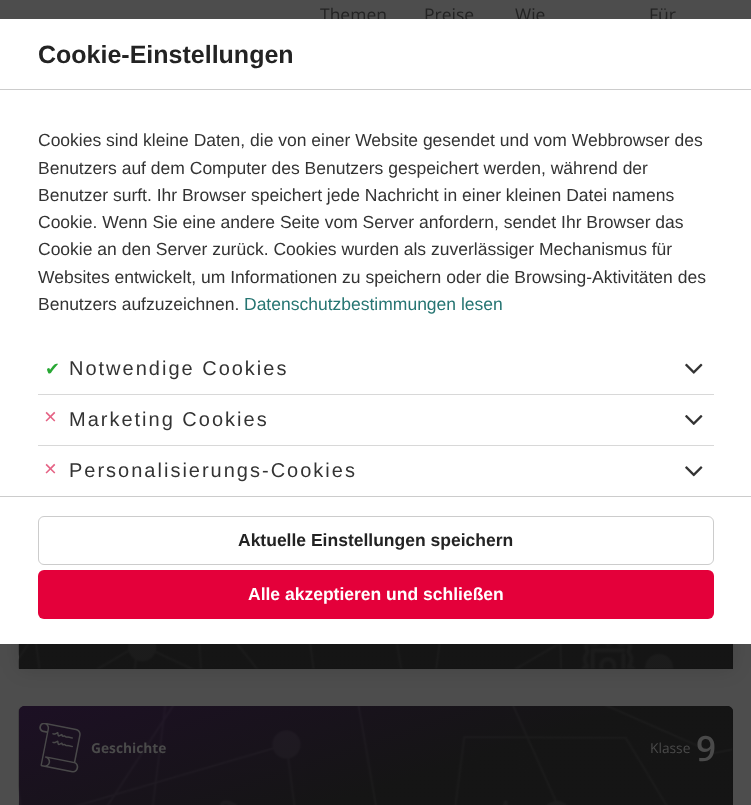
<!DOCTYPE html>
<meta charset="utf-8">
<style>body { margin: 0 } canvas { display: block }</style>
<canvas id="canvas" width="751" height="805"></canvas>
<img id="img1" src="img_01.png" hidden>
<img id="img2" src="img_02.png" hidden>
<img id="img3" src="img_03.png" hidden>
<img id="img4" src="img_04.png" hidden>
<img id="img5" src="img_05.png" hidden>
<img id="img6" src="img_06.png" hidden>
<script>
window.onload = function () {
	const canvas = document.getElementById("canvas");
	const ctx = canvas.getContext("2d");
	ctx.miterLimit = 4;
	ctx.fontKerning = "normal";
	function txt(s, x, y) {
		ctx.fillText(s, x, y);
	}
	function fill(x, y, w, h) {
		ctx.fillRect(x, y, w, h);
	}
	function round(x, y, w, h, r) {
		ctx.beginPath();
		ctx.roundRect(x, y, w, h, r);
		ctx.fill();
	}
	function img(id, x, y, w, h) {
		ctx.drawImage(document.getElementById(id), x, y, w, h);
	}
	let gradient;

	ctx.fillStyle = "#4D4D4D";
	fill(0, 0, 751, 805);
	gradient = ctx.createLinearGradient(306, 331, 446, 762);
	gradient.addColorStop(0, "#1C0D25");
	gradient.addColorStop(0.42, "#131313");
	ctx.fillStyle = gradient;
	fill(19, 644, 714, 25);
	ctx.fillStyle = "rgba(0, 0, 0, 0.13)";
	ctx.filter = "blur(9.5px)";
	ctx.beginPath();
	ctx.roundRect(19, 424, 714, 245, 6);
	ctx.fill();
	ctx.filter = "none";
	img("img1", 18, 644, 715, 25);
	gradient = ctx.createLinearGradient(306, 331, 446, 762);
	gradient.addColorStop(0, "rgba(28, 13, 37, 0.85)");
	gradient.addColorStop(0.42, "rgba(19, 19, 19, 0.85)");
	ctx.fillStyle = gradient;
	fill(19, 644, 714, 25);
	gradient = ctx.createLinearGradient(306, 613, 446, 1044);
	gradient.addColorStop(0, "#1C0D25");
	gradient.addColorStop(0.42, "#131313");
	ctx.fillStyle = gradient;
	ctx.beginPath();
	ctx.moveTo(25, 706);
	ctx.lineTo(727, 706);
	ctx.bezierCurveTo(730.5, 706, 733, 708.5, 733, 712);
	ctx.lineTo(733, 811);
	ctx.lineTo(19, 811);
	ctx.lineTo(19, 712);
	ctx.bezierCurveTo(19, 708.5, 21.5, 706, 25, 706);
	ctx.closePath();
	ctx.fill();
	img("img2", 18, 706, 715, 99);
	gradient = ctx.createLinearGradient(306, 613, 446, 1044);
	gradient.addColorStop(0, "rgba(28, 13, 37, 0.85)");
	gradient.addColorStop(0.42, "rgba(19, 19, 19, 0.85)");
	ctx.fillStyle = gradient;
	ctx.beginPath();
	ctx.moveTo(25, 706);
	ctx.lineTo(727, 706);
	ctx.bezierCurveTo(730.5, 706, 733, 708.5, 733, 712);
	ctx.lineTo(733, 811);
	ctx.lineTo(19, 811);
	ctx.lineTo(19, 712);
	ctx.bezierCurveTo(19, 708.5, 21.5, 706, 25, 706);
	ctx.closePath();
	ctx.fill();
	img("img3", 39, 723, 42, 50);
	ctx.font = "17.5px Open Sans";
	ctx.fillStyle = "#232323";
	txt("Themen", 320, 21);
	txt("Preise", 424, 21);
	txt("Wie", 515, 21);
	txt("Für", 649, 21);
	ctx.font = "bold 13.75px Open Sans";
	ctx.fillStyle = "#4A4A4A";
	txt("Geschichte", 91, 753);
	ctx.font = "13.75px Open Sans";
	txt("Klasse", 650, 753);
	ctx.font = "600 35px Open Sans";
	txt("9", 696, 761);
	ctx.fillStyle = "#FFFFFF";
	fill(0, 19, 751, 625);
	ctx.fillStyle = "#CCCCCC";
	fill(0, 89, 751, 1);
	ctx.font = "bold 25px Liberation Sans";
	ctx.fillStyle = "#232323";
	txt("Cookie-Einstellungen", 38, 63);
	ctx.font = "17.5px Liberation Sans";
	ctx.fillStyle = "#333333";
	txt("Cookies sind kleine Daten, die von einer Website gesendet und vom Webbrowser des", 38, 146);
	txt("Benutzers auf dem Computer des Benutzers gespeichert werden, während der", 38, 174);
	txt("Benutzer surft. Ihr Browser speichert jede Nachricht in einer kleinen Datei namens", 38, 201);
	txt("Cookie. Wenn Sie eine andere Seite vom Server anfordern, sendet Ihr Browser das", 38, 228);
	txt("Cookie an den Server zurück. Cookies wurden als zuverlässiger Mechanismus für", 38, 255);
	txt("Websites entwickelt, um Informationen zu speichern oder die Browsing-Aktivitäten des", 38, 283);
	txt("Benutzers aufzuzeichnen.", 38, 310);
	ctx.fillStyle = "#267572";
	txt("Datenschutzbestimmungen lesen", 244, 310);
	ctx.letterSpacing = "2px";
	ctx.font = "18px DejaVu Sans";
	ctx.fillStyle = "#28A834";
	txt("✔", 45, 375);
	ctx.font = "20px Liberation Sans";
	ctx.fillStyle = "#333333";
	txt("Notwendige Cookies", 69, 375);
	img("img4", 685, 363, 18, 11);
	ctx.fillStyle = "#D8D8D8";
	fill(38, 394, 676, 1);
	ctx.font = "22px Liberation Sans";
	ctx.fillStyle = "#E56385";
	txt("×", 44, 424);
	ctx.font = "20px Liberation Sans";
	ctx.fillStyle = "#333333";
	txt("Marketing Cookies", 69, 426);
	img("img5", 685, 415, 18, 10);
	ctx.fillStyle = "#D8D8D8";
	fill(38, 445, 676, 1);
	ctx.font = "22px Liberation Sans";
	ctx.fillStyle = "#E56385";
	txt("×", 44, 476);
	ctx.font = "20px Liberation Sans";
	ctx.fillStyle = "#333333";
	txt("Personalisierungs-Cookies", 69, 477);
	img("img6", 685, 466, 18, 11);
	ctx.fillStyle = "#CCCCCC";
	fill(0, 496, 751, 1);
	ctx.beginPath();
	ctx.roundRect(38.5, 516.5, 675, 48, 5.5);
	ctx.strokeStyle = "#CCCCCC";
	ctx.stroke();
	ctx.letterSpacing = "0px";
	ctx.font = "bold 17.5px Liberation Sans";
	ctx.fillStyle = "#232323";
	txt("Aktuelle Einstellungen speichern", 238, 546);
	ctx.fillStyle = "#E4003A";
	round(38, 570, 676, 49, 6);
	ctx.fillStyle = "#FFFFFF";
	txt("Alle akzeptieren und schließen", 248, 600);
};
</script>
